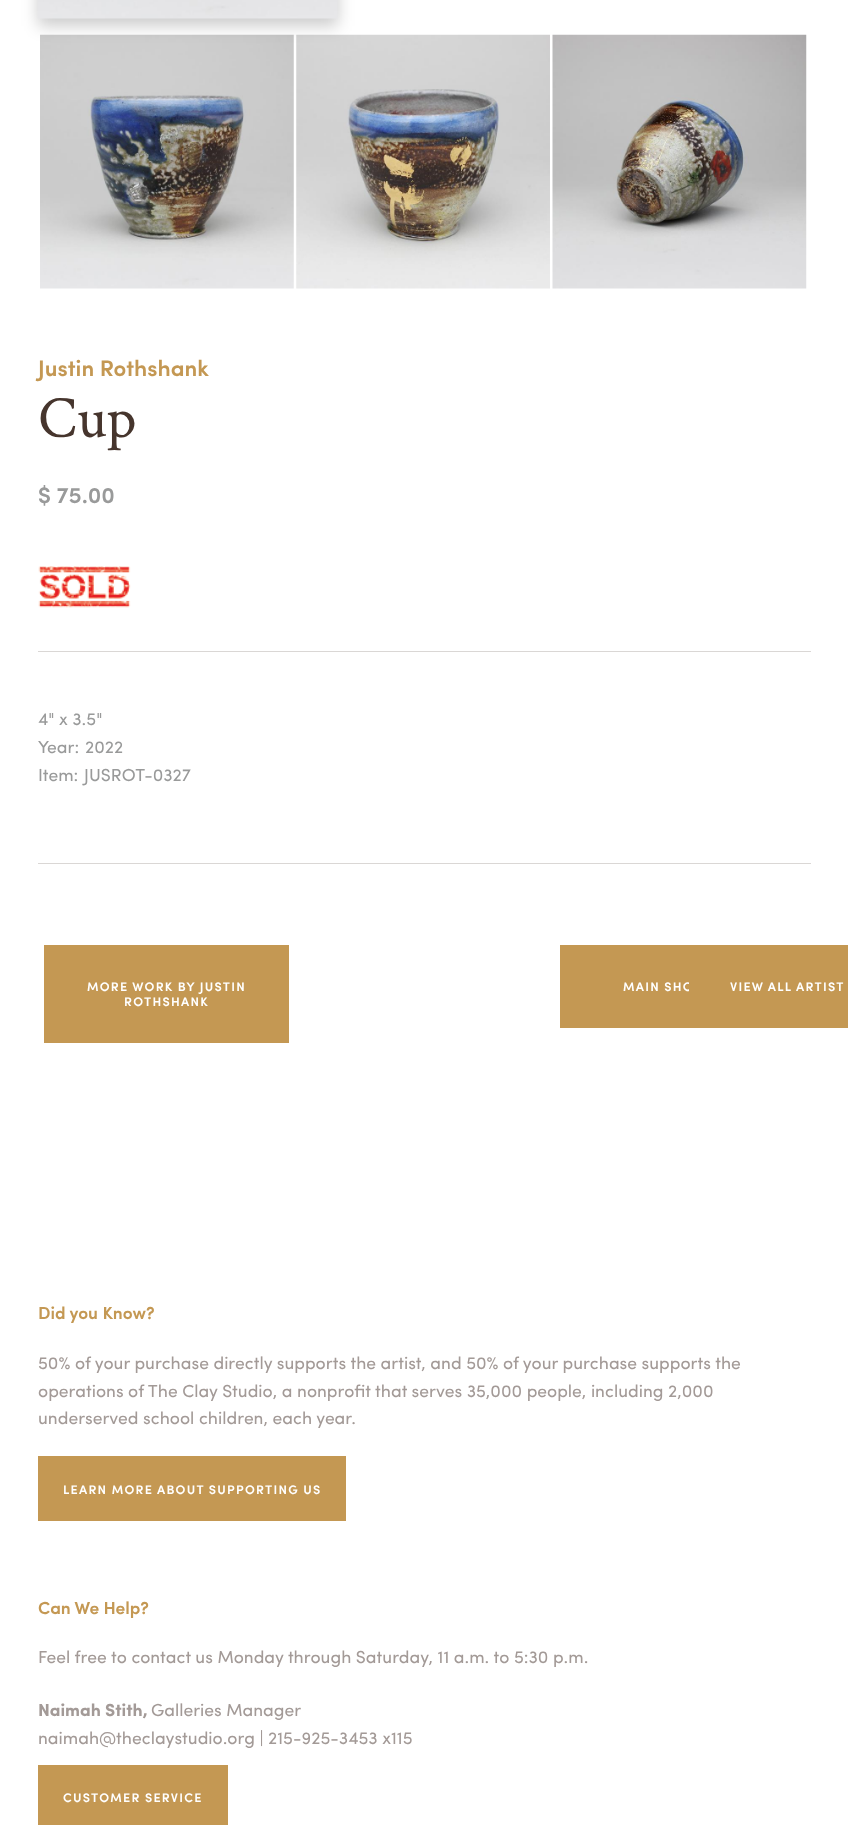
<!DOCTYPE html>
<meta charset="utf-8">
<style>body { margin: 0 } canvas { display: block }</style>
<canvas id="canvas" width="848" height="1825"></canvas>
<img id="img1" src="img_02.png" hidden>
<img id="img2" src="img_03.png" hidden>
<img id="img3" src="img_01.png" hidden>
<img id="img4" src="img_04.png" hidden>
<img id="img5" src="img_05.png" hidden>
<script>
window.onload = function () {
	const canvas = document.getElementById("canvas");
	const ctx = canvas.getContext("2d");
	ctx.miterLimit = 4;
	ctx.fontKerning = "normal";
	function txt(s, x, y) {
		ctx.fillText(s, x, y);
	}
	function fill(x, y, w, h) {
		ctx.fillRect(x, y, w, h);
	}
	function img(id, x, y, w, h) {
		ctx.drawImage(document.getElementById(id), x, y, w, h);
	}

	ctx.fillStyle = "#FFFFFF";
	fill(0, 0, 848, 1825);
	img("img1", 40, 34, 254, 255);
	img("img2", 296, 34, 254, 255);
	ctx.fillStyle = "rgba(0, 0, 0, 0.2)";
	ctx.filter = "blur(8px)";
	ctx.beginPath();
	ctx.rect(38, -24, 300, 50);
	ctx.fill();
	ctx.filter = "none";
	img("img3", 37, 0, 301, 19);
	img("img4", 552, 34, 255, 255);
	ctx.fillStyle = "#DAD7D5";
	fill(38, 651, 773, 1);
	img("img5", 38, 566, 93, 42);
	fill(38, 863, 773, 1);
	ctx.fillStyle = "#C49853";
	fill(44, 945, 245, 98);
	fill(560, 945, 129, 83);
	fill(38, 1456, 308, 65);
	fill(38, 1765, 190, 60);
	ctx.font = "600 22.5px Sofia";
	txt("Justin Rothshank", 38, 376);
	ctx.font = "60px Crimson Text";
	ctx.fillStyle = "#46352D";
	txt("Cup", 38, 437);
	ctx.font = "600 22.5px Sofia";
	ctx.fillStyle = "#999A9A";
	txt("$ 75.00", 38, 503);
	ctx.font = "17.5px Sofia";
	txt("4\" x 3.5\"", 38, 725);
	txt("Year:", 38, 753);
	txt("2022", 85, 753);
	txt("Item:", 38, 781);
	txt("JUSROT-0327", 84, 781);
	ctx.letterSpacing = "1.25px";
	ctx.font = "600 12.5px Sofia";
	ctx.fillStyle = "#FFFFFF";
	txt("MORE WORK BY JUSTIN", 87, 991);
	txt("ROTHSHANK", 124, 1006);
	txt("MAIN SHO", 623, 991);
	ctx.fillStyle = "#C49853";
	fill(689, 945, 159, 83);
	ctx.fillStyle = "#FFFFFF";
	txt("VIEW ALL ARTIST", 730, 991);
	ctx.letterSpacing = "0px";
	ctx.font = "600 17.5px Sofia";
	ctx.fillStyle = "#C49853";
	txt("Did you Know?", 38, 1319);
	ctx.font = "17.5px Sofia";
	ctx.fillStyle = "#A39A97";
	txt("50% of your purchase directly supports the artist, and 50% of your purchase supports the", 38, 1369);
	txt("operations of The Clay Studio, a nonprofit that serves 35,000 people, including 2,000", 38, 1397);
	txt("underserved school children, each year.", 38, 1424);
	ctx.letterSpacing = "1.25px";
	ctx.font = "600 12.5px Sofia";
	ctx.fillStyle = "#FFFFFF";
	txt("LEARN MORE ABOUT SUPPORTING US", 63, 1494);
	ctx.letterSpacing = "0px";
	ctx.font = "600 17.5px Sofia";
	ctx.fillStyle = "#C49853";
	txt("Can We Help?", 38, 1614);
	ctx.font = "17.5px Sofia";
	ctx.fillStyle = "#A39A97";
	txt("Feel free to contact us Monday through Saturday, 11 a.m. to 5:30 p.m.", 38, 1663);
	ctx.font = "bold 17.5px Sofia";
	txt("Naimah Stith,", 38, 1716);
	ctx.font = "17.5px Sofia";
	txt("Galleries Manager", 151, 1716);
	txt("naimah@theclaystudio.org | 215-925-3453 x115", 38, 1744);
	ctx.letterSpacing = "1.25px";
	ctx.font = "600 12.5px Sofia";
	ctx.fillStyle = "#FFFFFF";
	txt("CUSTOMER SERVICE", 63, 1802);
};
</script>
